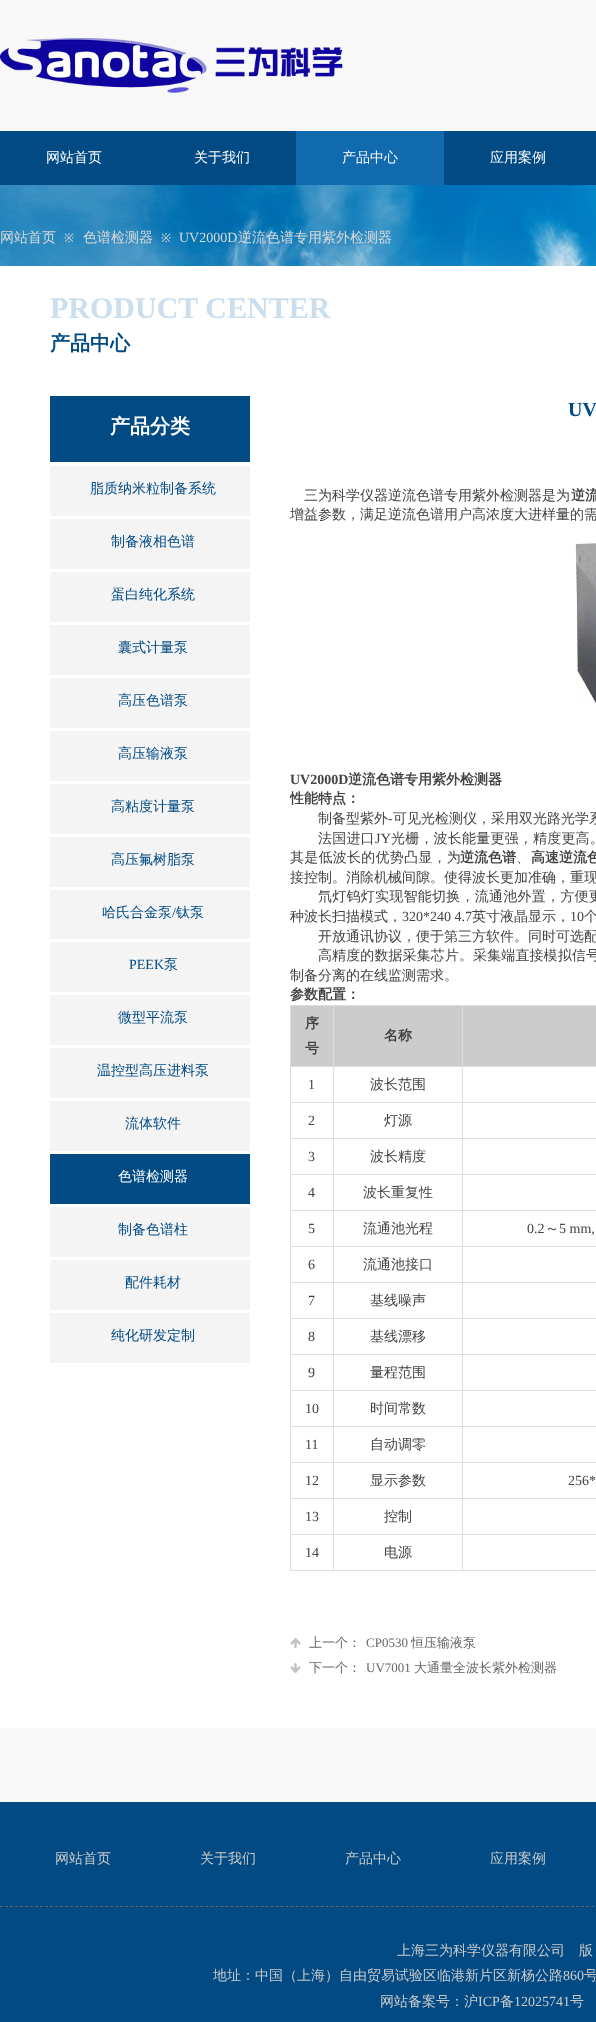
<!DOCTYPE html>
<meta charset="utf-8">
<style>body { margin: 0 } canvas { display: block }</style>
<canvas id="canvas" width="596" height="2022"></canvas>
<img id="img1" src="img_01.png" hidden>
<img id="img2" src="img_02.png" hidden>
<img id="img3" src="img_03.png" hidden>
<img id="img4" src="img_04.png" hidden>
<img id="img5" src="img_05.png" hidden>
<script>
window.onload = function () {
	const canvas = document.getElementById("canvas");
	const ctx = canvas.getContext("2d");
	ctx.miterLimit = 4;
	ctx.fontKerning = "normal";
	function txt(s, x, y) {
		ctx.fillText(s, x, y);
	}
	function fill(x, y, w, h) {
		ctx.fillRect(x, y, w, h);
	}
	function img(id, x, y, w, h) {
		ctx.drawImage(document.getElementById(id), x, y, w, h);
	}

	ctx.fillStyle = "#F8F8F8";
	fill(0, 0, 596, 2022);
	img("img1", 0, 38, 343, 55);
	ctx.fillStyle = "#014A84";
	fill(0, 131, 596, 54);
	ctx.fillStyle = "#1169AE";
	fill(296, 131, 148, 54);
	img("img2", 0, 185, 596, 81);
	ctx.fillStyle = "#FFFFFF";
	fill(0, 266, 596, 1462);
	ctx.fillStyle = "#014A84";
	fill(50, 396, 200, 66);
	img("img3", 575, 543, 21, 161);
	ctx.fillStyle = "#CCCCCC";
	fill(291, 1006, 305, 60);
	ctx.fillStyle = "#DDDDDD";
	fill(462, 1005, 134, 1);
	fill(462, 1066, 134, 1);
	fill(462, 1102, 134, 1);
	fill(462, 1138, 134, 1);
	fill(462, 1174, 134, 1);
	fill(462, 1210, 134, 1);
	fill(462, 1246, 134, 1);
	fill(462, 1282, 134, 1);
	fill(462, 1318, 134, 1);
	fill(462, 1354, 134, 1);
	fill(462, 1390, 134, 1);
	fill(462, 1426, 134, 1);
	fill(462, 1462, 134, 1);
	fill(462, 1498, 134, 1);
	fill(462, 1534, 134, 1);
	fill(462, 1570, 134, 1);
	fill(462, 1534, 1, 37);
	fill(333, 1534, 130, 1);
	fill(462, 1498, 1, 37);
	fill(333, 1498, 130, 1);
	fill(462, 1462, 1, 37);
	fill(333, 1462, 130, 1);
	fill(462, 1426, 1, 37);
	fill(333, 1426, 130, 1);
	fill(462, 1390, 1, 37);
	fill(333, 1390, 130, 1);
	fill(462, 1354, 1, 37);
	fill(333, 1354, 130, 1);
	fill(462, 1318, 1, 37);
	fill(333, 1318, 130, 1);
	fill(462, 1282, 1, 37);
	fill(333, 1282, 130, 1);
	fill(462, 1246, 1, 37);
	fill(333, 1246, 130, 1);
	fill(462, 1210, 1, 37);
	fill(333, 1210, 130, 1);
	fill(462, 1174, 1, 37);
	fill(333, 1174, 130, 1);
	fill(462, 1138, 1, 37);
	fill(333, 1138, 130, 1);
	fill(462, 1102, 1, 37);
	fill(333, 1102, 130, 1);
	fill(462, 1066, 1, 37);
	fill(333, 1066, 130, 1);
	fill(462, 1005, 1, 62);
	fill(333, 1005, 130, 1);
	fill(333, 1570, 130, 1);
	fill(333, 1534, 1, 37);
	fill(290, 1534, 44, 1);
	fill(333, 1498, 1, 37);
	fill(290, 1498, 44, 1);
	fill(333, 1462, 1, 37);
	fill(290, 1462, 44, 1);
	fill(333, 1426, 1, 37);
	fill(290, 1426, 44, 1);
	fill(333, 1390, 1, 37);
	fill(290, 1390, 44, 1);
	fill(333, 1354, 1, 37);
	fill(290, 1354, 44, 1);
	fill(333, 1318, 1, 37);
	fill(290, 1318, 44, 1);
	fill(333, 1282, 1, 37);
	fill(290, 1282, 44, 1);
	fill(333, 1246, 1, 37);
	fill(290, 1246, 44, 1);
	fill(333, 1210, 1, 37);
	fill(290, 1210, 44, 1);
	fill(333, 1174, 1, 37);
	fill(290, 1174, 44, 1);
	fill(333, 1138, 1, 37);
	fill(290, 1138, 44, 1);
	fill(333, 1102, 1, 37);
	fill(290, 1102, 44, 1);
	fill(333, 1066, 1, 37);
	fill(290, 1066, 44, 1);
	fill(333, 1005, 1, 62);
	fill(290, 1005, 44, 1);
	fill(290, 1570, 44, 1);
	fill(290, 1534, 1, 37);
	fill(290, 1498, 1, 37);
	fill(290, 1462, 1, 37);
	fill(290, 1426, 1, 37);
	fill(290, 1390, 1, 37);
	fill(290, 1354, 1, 37);
	fill(290, 1318, 1, 37);
	fill(290, 1282, 1, 37);
	fill(290, 1246, 1, 37);
	fill(290, 1210, 1, 37);
	fill(290, 1174, 1, 37);
	fill(290, 1138, 1, 37);
	fill(290, 1102, 1, 37);
	fill(290, 1066, 1, 37);
	fill(290, 1005, 1, 62);
	ctx.fillStyle = "#C2C2C2";
	fill(290, 1638, 11, 10);
	img("img4", 290, 1638, 11, 10);
	fill(290, 1663, 11, 10);
	img("img5", 290, 1663, 11, 10);
	ctx.fillStyle = "#F4F4F4";
	fill(50, 466, 200, 50);
	fill(50, 519, 200, 50);
	fill(50, 572, 200, 50);
	fill(50, 625, 200, 50);
	fill(50, 678, 200, 50);
	fill(50, 731, 200, 50);
	fill(50, 784, 200, 50);
	fill(50, 837, 200, 50);
	fill(50, 890, 200, 49);
	fill(50, 942, 200, 50);
	fill(50, 995, 200, 50);
	fill(50, 1048, 200, 50);
	fill(50, 1101, 200, 50);
	ctx.fillStyle = "#014A84";
	fill(50, 1154, 200, 50);
	ctx.fillStyle = "#F4F4F4";
	fill(50, 1207, 200, 50);
	fill(50, 1260, 200, 50);
	fill(50, 1313, 200, 50);
	ctx.fillStyle = "#014A84";
	fill(0, 1802, 596, 220);
	ctx.beginPath();
	ctx.moveTo(0, 1906.5);
	ctx.lineTo(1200, 1906.5);
	ctx.strokeStyle = "#666666";
	ctx.setLineDash([3, 2.01]);
	ctx.stroke();
	ctx.font = "500 14px WenQuanYi Zen Hei";
	ctx.fillStyle = "#FFFFFF";
	txt("网站首页", 46, 162);
	txt("关于我们", 194, 162);
	txt("产品中心", 342, 162);
	txt("应用案例", 490, 162);
	ctx.fillStyle = "#D9D9D9";
	txt("网站首页", 0, 242);
	ctx.font = "12px Noto Sans";
	txt("※", 64, 242);
	ctx.font = "500 14px WenQuanYi Zen Hei";
	txt("色谱检测器", 83, 242);
	ctx.font = "12px Noto Sans";
	txt("※", 161, 242);
	ctx.font = "14px Liberation Serif";
	txt("UV2000D", 179, 242);
	ctx.font = "500 14px WenQuanYi Zen Hei";
	txt("逆流色谱专用紫外检测器", 238, 242);
	ctx.font = "bold 30px Liberation Serif";
	ctx.fillStyle = "#CADEEE";
	txt("PRODUCT CENTER", 50, 318);
	ctx.font = "bold 20px WenQuanYi Zen Hei";
	ctx.fillStyle = "#014A84";
	txt("产品中心", 50, 350);
	ctx.fillStyle = "#FFFFFF";
	txt("产品分类", 110, 433);
	ctx.font = "bold 20px Liberation Serif";
	ctx.fillStyle = "#014A84";
	txt("UV", 568, 416);
	ctx.font = "500 14px WenQuanYi Zen Hei";
	ctx.fillStyle = "#434343";
	txt("三为科学仪器逆流色谱专用紫外检测器是为", 304, 500);
	ctx.font = "bold 14px WenQuanYi Zen Hei";
	txt("逆流", 571, 500);
	ctx.font = "500 14px WenQuanYi Zen Hei";
	txt("增益参数，满足逆流色谱用户高浓度大进样量的需", 290, 519);
	ctx.font = "bold 14px Liberation Serif";
	txt("UV2000D", 290, 784);
	ctx.font = "bold 14px WenQuanYi Zen Hei";
	txt("逆流色谱专用紫外检测器", 348, 784);
	txt("性能特点：", 290, 803);
	ctx.font = "500 14px WenQuanYi Zen Hei";
	txt("制备型紫外", 318, 823);
	ctx.font = "14px Liberation Serif";
	txt("-", 388, 823);
	ctx.font = "500 14px WenQuanYi Zen Hei";
	txt("可见光检测仪，采用双光路光学系", 393, 823);
	ctx.letterSpacing = "0.2px";
	txt("法国进口", 318, 843);
	ctx.font = "14px Liberation Serif";
	txt("JY", 375, 843);
	ctx.font = "500 14px WenQuanYi Zen Hei";
	txt("光栅，波长能量更强，精度更高。", 391, 843);
	ctx.letterSpacing = "0.25px";
	txt("其是低波长的优势凸显，为", 290, 862);
	ctx.letterSpacing = "0px";
	ctx.font = "bold 14px WenQuanYi Zen Hei";
	txt("逆流色谱", 460, 862);
	ctx.font = "500 14px WenQuanYi Zen Hei";
	txt("、", 516, 862);
	ctx.font = "bold 14px WenQuanYi Zen Hei";
	txt("高速逆流色", 531, 862);
	ctx.font = "500 14px WenQuanYi Zen Hei";
	txt("接控制。消除机械间隙。使得波长更加准确，重现", 290, 882);
	ctx.letterSpacing = "0.25px";
	txt("氘灯钨灯实现智能切换，流通池外置，方便更", 318, 901);
	ctx.letterSpacing = "0px";
	txt("种波长扫描模式，", 290, 921);
	ctx.font = "14px Liberation Serif";
	txt("320*240 4.7", 402, 921);
	ctx.font = "500 14px WenQuanYi Zen Hei";
	txt("英寸液晶显示，", 472, 921);
	ctx.font = "14px Liberation Serif";
	txt("10", 570, 921);
	ctx.font = "500 14px WenQuanYi Zen Hei";
	txt("个", 584, 921);
	txt("开放通讯协议，便于第三方软件。同时可选配", 318, 941);
	ctx.letterSpacing = "0.1px";
	txt("高精度的数据采集芯片。采集端直接模拟信号", 318, 960);
	ctx.letterSpacing = "0px";
	txt("制备分离的在线监测需求。", 290, 980);
	ctx.font = "bold 14px WenQuanYi Zen Hei";
	txt("参数配置：", 290, 999);
	txt("序", 305, 1028);
	txt("号", 305, 1053);
	txt("名称", 384, 1040);
	ctx.font = "14px Liberation Serif";
	txt("1", 308, 1089);
	ctx.font = "500 14px WenQuanYi Zen Hei";
	txt("波长范围", 370, 1089);
	ctx.font = "14px Liberation Serif";
	txt("2", 308, 1125);
	ctx.font = "500 14px WenQuanYi Zen Hei";
	txt("灯源", 384, 1125);
	ctx.font = "14px Liberation Serif";
	txt("3", 308, 1161);
	ctx.font = "500 14px WenQuanYi Zen Hei";
	txt("波长精度", 370, 1161);
	ctx.font = "14px Liberation Serif";
	txt("4", 308, 1197);
	ctx.font = "500 14px WenQuanYi Zen Hei";
	txt("波长重复性", 363, 1197);
	ctx.font = "14px Liberation Serif";
	txt("5", 308, 1233);
	ctx.font = "500 14px WenQuanYi Zen Hei";
	txt("流通池光程", 363, 1233);
	ctx.font = "14px Liberation Serif";
	txt("0.2", 527, 1233);
	ctx.font = "500 14px WenQuanYi Zen Hei";
	txt("～", 545, 1233);
	ctx.font = "14px Liberation Serif";
	txt("5 mm,", 559, 1233);
	txt("6", 308, 1269);
	ctx.font = "500 14px WenQuanYi Zen Hei";
	txt("流通池接口", 363, 1269);
	ctx.font = "14px Liberation Serif";
	txt("7", 308, 1305);
	ctx.font = "500 14px WenQuanYi Zen Hei";
	txt("基线噪声", 370, 1305);
	ctx.font = "14px Liberation Serif";
	txt("8", 308, 1341);
	ctx.font = "500 14px WenQuanYi Zen Hei";
	txt("基线漂移", 370, 1341);
	ctx.font = "14px Liberation Serif";
	txt("9", 308, 1377);
	ctx.font = "500 14px WenQuanYi Zen Hei";
	txt("量程范围", 370, 1377);
	ctx.font = "14px Liberation Serif";
	txt("10", 305, 1413);
	ctx.font = "500 14px WenQuanYi Zen Hei";
	txt("时间常数", 370, 1413);
	ctx.font = "14px Liberation Serif";
	txt("11", 305, 1449);
	ctx.font = "500 14px WenQuanYi Zen Hei";
	txt("自动调零", 370, 1449);
	ctx.font = "14px Liberation Serif";
	txt("12", 305, 1485);
	ctx.font = "500 14px WenQuanYi Zen Hei";
	txt("显示参数", 370, 1485);
	ctx.font = "14px Liberation Serif";
	txt("256*", 568, 1485);
	txt("13", 305, 1521);
	ctx.font = "500 14px WenQuanYi Zen Hei";
	txt("控制", 384, 1521);
	ctx.font = "14px Liberation Serif";
	txt("14", 305, 1557);
	ctx.font = "500 14px WenQuanYi Zen Hei";
	txt("电源", 384, 1557);
	ctx.font = "500 13px WenQuanYi Zen Hei";
	ctx.fillStyle = "#666666";
	txt("上一个：", 309, 1647);
	ctx.font = "13px Liberation Serif";
	txt("CP0530", 366, 1647);
	ctx.font = "500 13px WenQuanYi Zen Hei";
	txt("恒压输液泵", 411, 1647);
	txt("下一个：", 309, 1672);
	ctx.font = "13px Liberation Serif";
	txt("UV7001", 366, 1672);
	ctx.font = "500 13px WenQuanYi Zen Hei";
	txt("大通量全波长紫外检测器", 414, 1672);
	ctx.font = "500 14px WenQuanYi Zen Hei";
	ctx.fillStyle = "#014A84";
	txt("脂质纳米粒制备系统", 90, 493);
	txt("制备液相色谱", 111, 546);
	txt("蛋白纯化系统", 111, 599);
	txt("囊式计量泵", 118, 652);
	txt("高压色谱泵", 118, 705);
	txt("高压输液泵", 118, 758);
	txt("高粘度计量泵", 111, 811);
	txt("高压氟树脂泵", 111, 864);
	txt("哈氏合金泵", 102, 917);
	ctx.font = "14px Liberation Serif";
	txt("/", 172, 917);
	ctx.font = "500 14px WenQuanYi Zen Hei";
	txt("钛泵", 176, 917);
	ctx.font = "14px Liberation Serif";
	txt("PEEK", 129, 969);
	ctx.font = "500 14px WenQuanYi Zen Hei";
	txt("泵", 164, 969);
	txt("微型平流泵", 118, 1022);
	txt("温控型高压进料泵", 97, 1075);
	txt("流体软件", 125, 1128);
	ctx.fillStyle = "#FFFFFF";
	txt("色谱检测器", 118, 1181);
	ctx.fillStyle = "#014A84";
	txt("制备色谱柱", 118, 1234);
	txt("配件耗材", 125, 1287);
	txt("纯化研发定制", 111, 1340);
	ctx.fillStyle = "#CACACA";
	txt("网站首页", 55, 1863);
	txt("关于我们", 200, 1863);
	txt("产品中心", 345, 1863);
	txt("应用案例", 490, 1863);
	txt("上海三为科学仪器有限公司　版", 397, 1955);
	txt("地址：中国（上海）自由贸易试验区临港新片区新杨公路", 213, 1980);
	ctx.font = "14px Liberation Serif";
	txt("860", 563, 1980);
	ctx.font = "500 14px WenQuanYi Zen Hei";
	txt("号", 584, 1980);
	txt("网站备案号：沪", 380, 2006);
	ctx.font = "14px Liberation Serif";
	txt("ICP", 478, 2006);
	ctx.font = "500 14px WenQuanYi Zen Hei";
	txt("备", 500, 2006);
	ctx.font = "14px Liberation Serif";
	txt("12025741", 514, 2006);
	ctx.font = "500 14px WenQuanYi Zen Hei";
	txt("号", 570, 2006);
};
</script>
